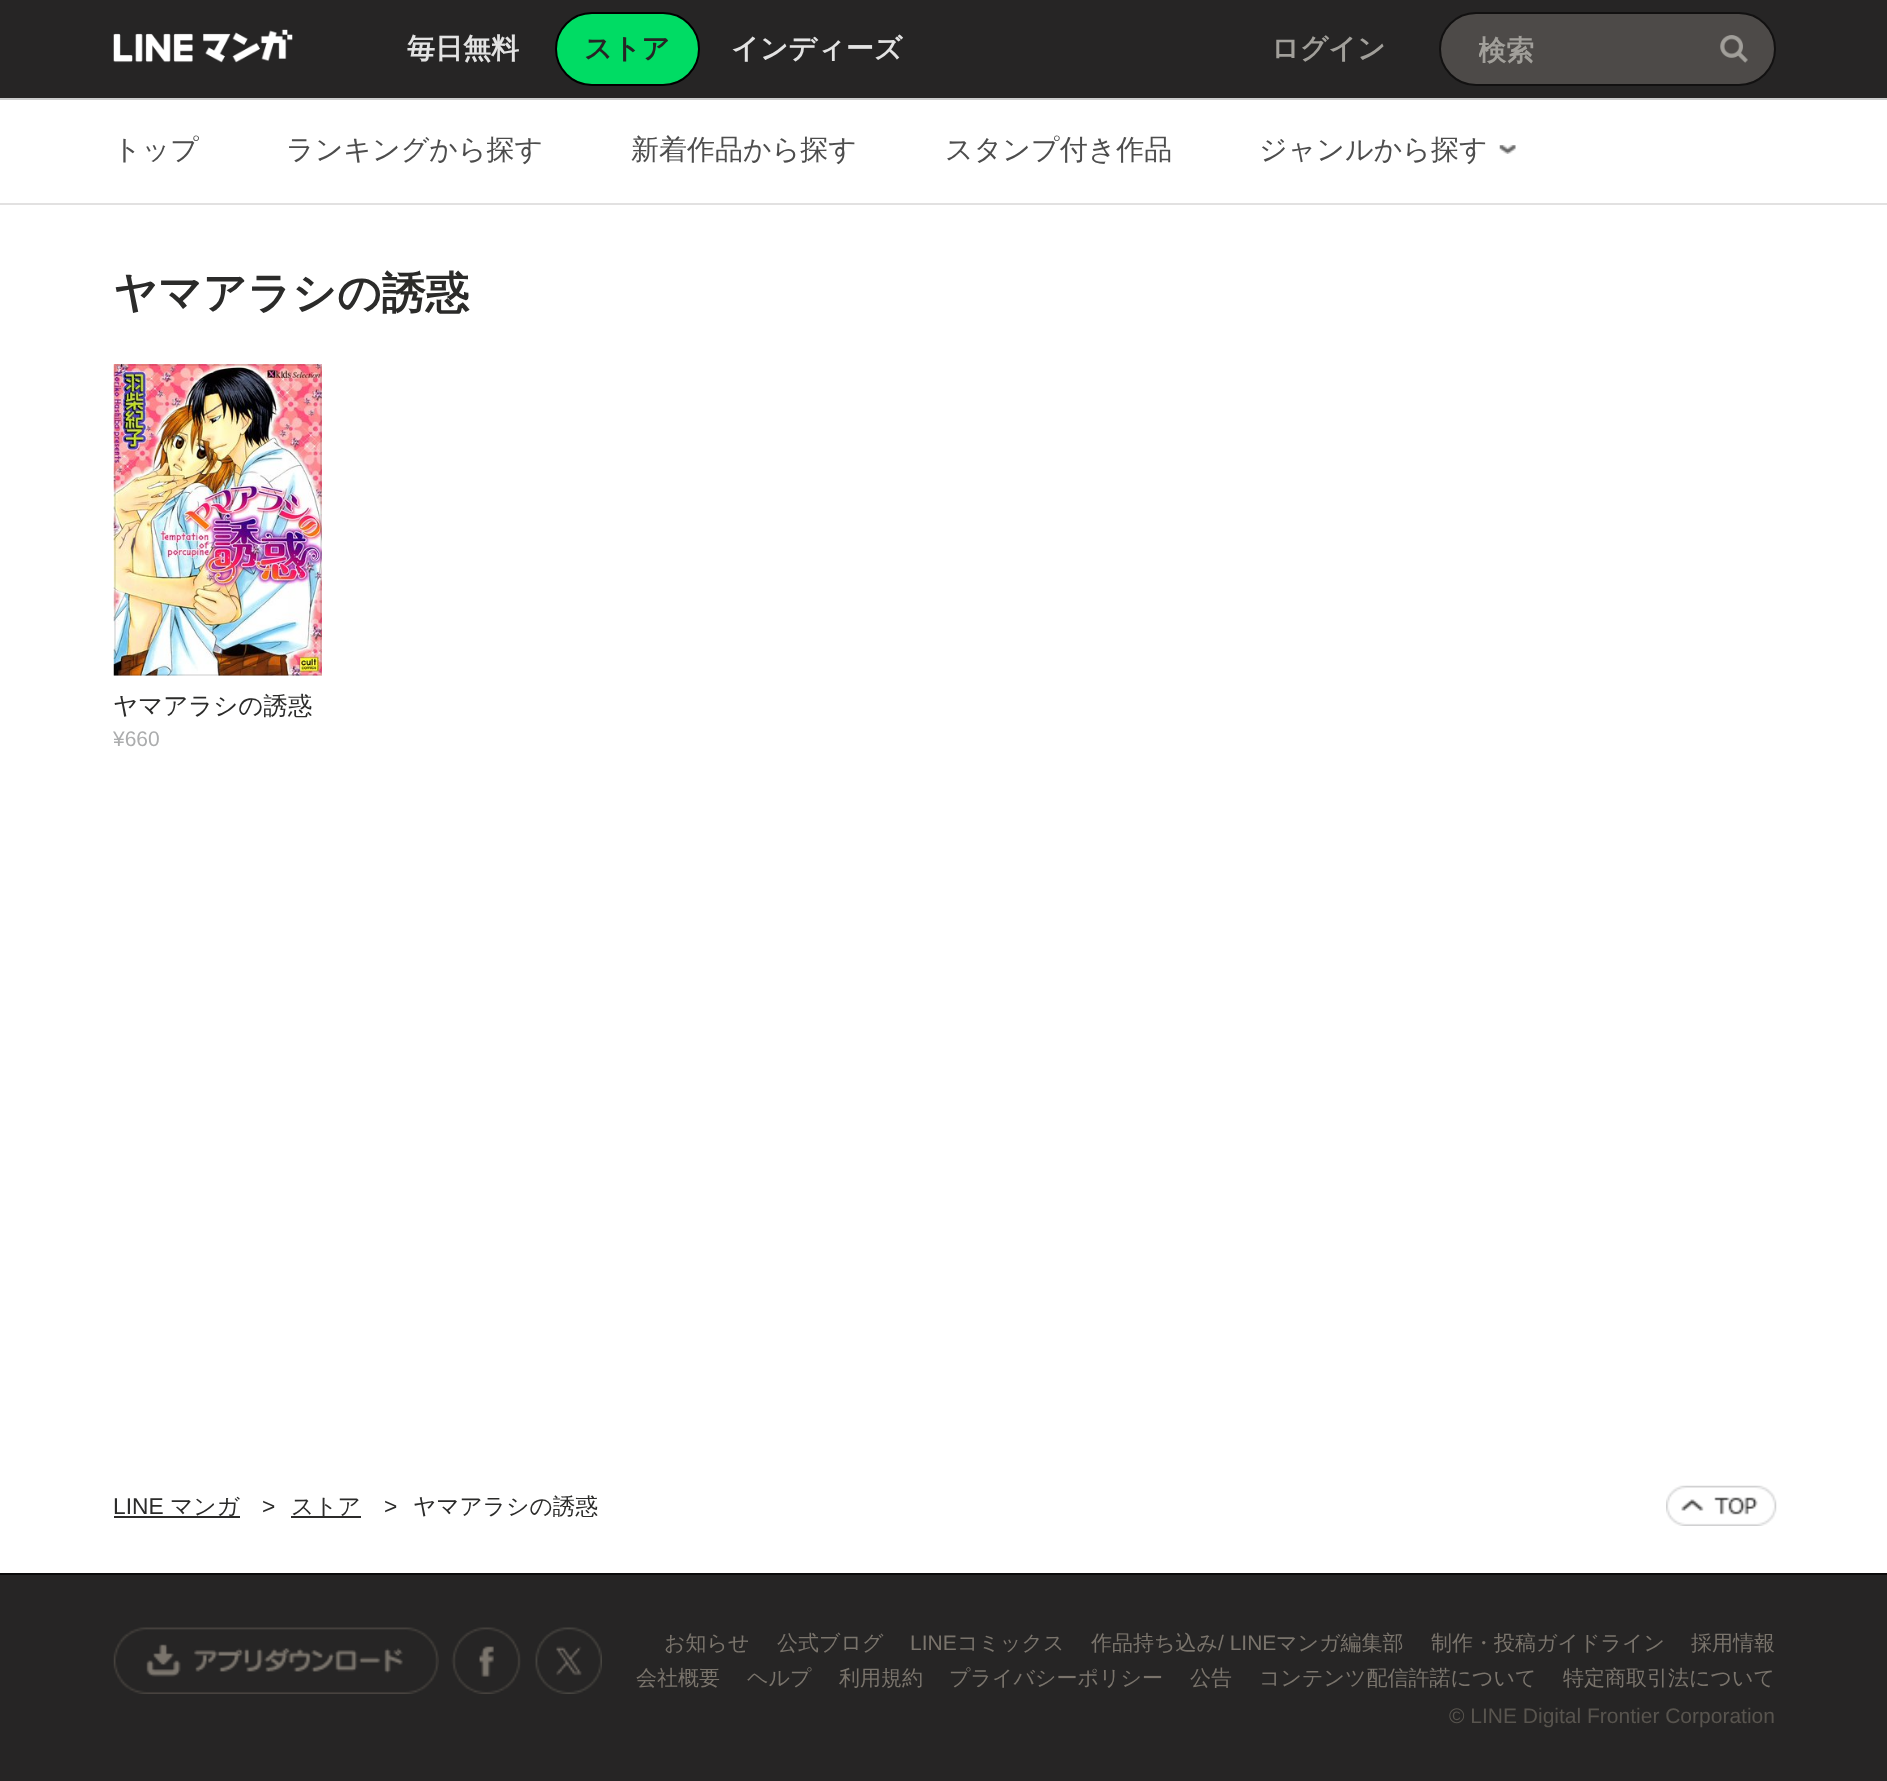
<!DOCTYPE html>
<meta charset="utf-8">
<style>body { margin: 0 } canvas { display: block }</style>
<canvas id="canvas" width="1887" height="1781"></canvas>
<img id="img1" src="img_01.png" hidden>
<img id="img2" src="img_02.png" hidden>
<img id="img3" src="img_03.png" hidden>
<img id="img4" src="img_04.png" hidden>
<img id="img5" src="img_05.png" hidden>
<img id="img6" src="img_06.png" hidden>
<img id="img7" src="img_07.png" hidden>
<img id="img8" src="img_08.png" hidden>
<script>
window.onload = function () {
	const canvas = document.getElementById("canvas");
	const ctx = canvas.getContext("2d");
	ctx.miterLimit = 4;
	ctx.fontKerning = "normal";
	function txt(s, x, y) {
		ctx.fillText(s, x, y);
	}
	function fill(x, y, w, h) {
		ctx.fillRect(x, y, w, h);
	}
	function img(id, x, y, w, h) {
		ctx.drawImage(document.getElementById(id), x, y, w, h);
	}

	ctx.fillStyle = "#FFFFFF";
	fill(0, 0, 1887, 1781);
	ctx.fillStyle = "#262525";
	fill(0, 0, 1887, 98);
	img("img1", 113, 29, 180, 34);
	ctx.fillStyle = "#00DC64";
	ctx.beginPath();
	ctx.roundRect(556, 13, 143, 72, 36);
	ctx.fill();
	ctx.strokeStyle = "#000000";
	ctx.lineWidth = 2;
	ctx.stroke();
	ctx.fillStyle = "#4D4A48";
	ctx.beginPath();
	ctx.roundRect(1440, 13, 335, 72, 36);
	ctx.fill();
	ctx.strokeStyle = "#121111";
	ctx.stroke();
	img("img2", 1720, 35, 28, 28);
	ctx.fillStyle = "#CCCCCC";
	fill(0, 98, 1887, 2);
	img("img3", 1499, 145, 17, 9);
	ctx.fillStyle = "#E2E1E1";
	fill(0, 203, 1887, 2);
	img("img4", 113, 364, 209, 312);
	ctx.strokeStyle = "rgba(0, 0, 0, 0.1)";
	ctx.strokeRect(115, 365, 206, 310);
	ctx.fillStyle = "#2B2B2A";
	fill(114, 1516, 126, 2);
	fill(291, 1516, 70, 2);
	img("img5", 1666, 1485, 111, 41);
	ctx.fillStyle = "#262525";
	fill(0, 1575, 1887, 206);
	ctx.fillStyle = "#0B0A0A";
	fill(0, 1573, 1887, 2);
	img("img6", 113, 1627, 326, 67);
	img("img7", 451, 1627, 70, 67);
	img("img8", 535, 1627, 67, 67);
	ctx.font = "bold 28px WenQuanYi Zen Hei";
	ctx.fillStyle = "#E3E3E3";
	txt("毎日無料", 407, 58);
	ctx.fillStyle = "#262525";
	txt("ストア", 584, 58);
	ctx.fillStyle = "#E3E3E3";
	txt("インディーズ", 731, 58);
	ctx.fillStyle = "#A19F9A";
	txt("ログイン", 1271, 58);
	ctx.save();
	ctx.beginPath();
	ctx.rect(1479, 33, 224, 37);
	ctx.clip();
	txt("検索", 1478, 60);
	ctx.restore();
	ctx.font = "500 28px WenQuanYi Zen Hei";
	ctx.fillStyle = "#4D4D4D";
	txt("トップ", 113, 159);
	txt("ランキングから探す", 286, 159);
	txt("新着作品から探す", 631, 159);
	txt("スタンプ付き作品", 945, 159);
	txt("ジャンルから探す", 1259, 159);
	ctx.font = "bold 43.75px WenQuanYi Zen Hei";
	ctx.fillStyle = "#2B2B2A";
	txt("ヤマアラシの誘惑", 113, 308);
	ctx.font = "500 24.5px WenQuanYi Zen Hei";
	txt("ヤマアラシの誘惑", 113, 714);
	ctx.font = "21px Liberation Sans";
	ctx.fillStyle = "#ACADAE";
	txt("¥660", 113, 746);
	ctx.font = "22.75px Liberation Sans";
	ctx.fillStyle = "#2B2B2A";
	txt("LINE", 113, 1514);
	ctx.font = "500 22.75px WenQuanYi Zen Hei";
	txt("マンガ", 170, 1514);
	ctx.font = "22.75px Liberation Sans";
	txt(">", 262, 1514);
	ctx.font = "500 22.75px WenQuanYi Zen Hei";
	txt("ストア", 291, 1514);
	ctx.font = "22.75px Liberation Sans";
	txt(">", 384, 1514);
	ctx.font = "500 22.75px WenQuanYi Zen Hei";
	txt("ヤマアラシの誘惑", 413, 1514);
	ctx.font = "500 21px WenQuanYi Zen Hei";
	ctx.fillStyle = "#7A746C";
	txt("お知らせ", 664, 1650);
	txt("公式ブログ", 777, 1650);
	ctx.font = "21px Liberation Sans";
	txt("LINE", 910, 1650);
	ctx.font = "500 21px WenQuanYi Zen Hei";
	txt("コミックス", 957, 1650);
	txt("作品持ち込み", 1091, 1650);
	ctx.font = "21px Liberation Sans";
	txt("/ LINE", 1218, 1650);
	ctx.font = "500 21px WenQuanYi Zen Hei";
	txt("マンガ編集部", 1276, 1650);
	txt("制作・投稿ガイドライン", 1431, 1650);
	txt("採用情報", 1691, 1650);
	txt("会社概要", 636, 1685);
	txt("ヘルプ", 747, 1685);
	txt("利用規約", 839, 1685);
	txt("プライバシーポリシー", 949, 1685);
	txt("公告", 1190, 1685);
	txt("コンテンツ配信許諾について", 1259, 1685);
	txt("特定商取引法について", 1563, 1685);
	ctx.font = "21px Liberation Sans";
	ctx.fillStyle = "#58544E";
	txt("© LINE Digital Frontier Corporation", 1449, 1723);
};
</script>
